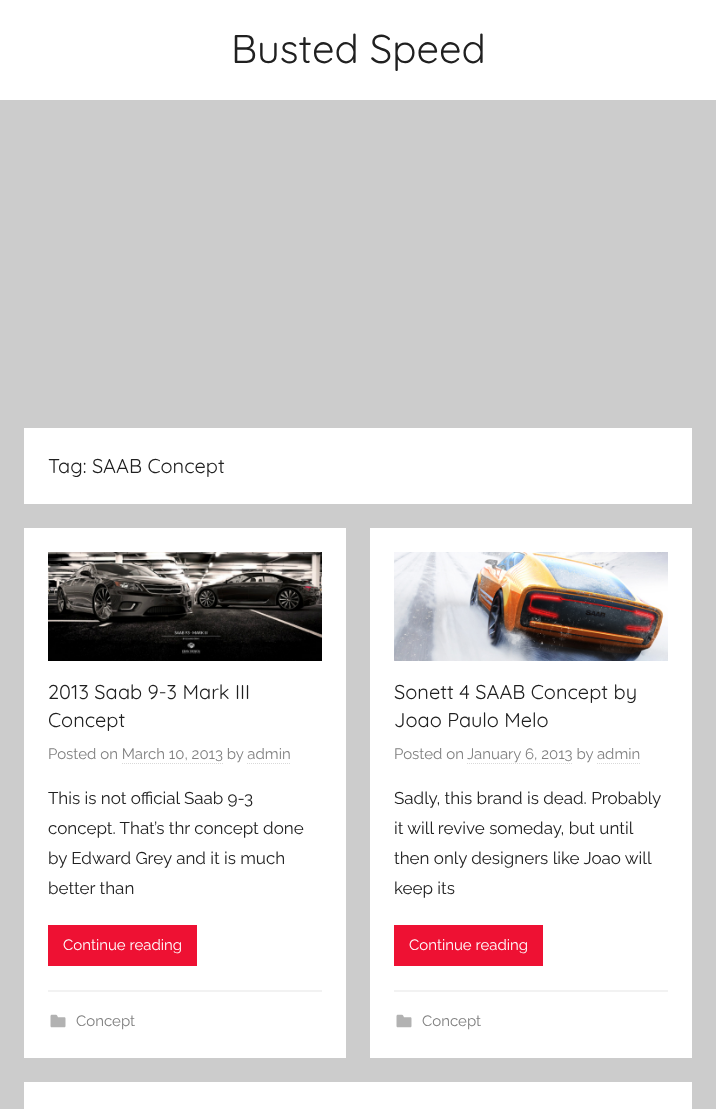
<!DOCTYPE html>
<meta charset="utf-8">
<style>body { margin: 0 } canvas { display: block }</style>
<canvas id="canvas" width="716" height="1109"></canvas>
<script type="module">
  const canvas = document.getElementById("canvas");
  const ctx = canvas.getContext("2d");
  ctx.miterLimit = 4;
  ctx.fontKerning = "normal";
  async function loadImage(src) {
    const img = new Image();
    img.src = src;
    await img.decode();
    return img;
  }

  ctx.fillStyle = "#cccccc";
  ctx.fillRect(0, 0, 716, 1109);
  ctx.fillStyle = "#ffffff";
  ctx.fillRect(0, 0, 716, 100);
  ctx.font = "40px Quicksand";
  ctx.fillStyle = "#202020";
  ctx.fillText("Busted Speed", 231, 63);
  ctx.fillStyle = "#ffffff";
  ctx.fillRect(24, 428, 668, 76);
  ctx.font = "20px Quicksand";
  ctx.fillStyle = "#202020";
  ctx.fillText("Tag: SAAB Concept", 48, 473);
  ctx.fillStyle = "#ffffff";
  ctx.fillRect(24, 528, 322, 530);
  ctx.drawImage(await loadImage("img1.png"), 48, 552, 274, 109);
  ctx.fillStyle = "#202020";
  ctx.fillText("2013 Saab 9-3 Mark III", 48, 699);
  ctx.fillText("Concept", 48, 727);
  ctx.font = "15px Raleway";
  ctx.fillStyle = "#808080";
  ctx.fillText("Posted on March 10, 2013 by admin", 48, 759);
  ctx.beginPath();
  ctx.moveTo(122, 763.5);
  ctx.lineTo(223, 763.5);
  ctx.strokeStyle = "#d9d9d9";
  ctx.setLineDash([1, 1]);
  ctx.stroke();
  ctx.beginPath();
  ctx.moveTo(247, 763.5);
  ctx.lineTo(291, 763.5);
  ctx.stroke();
  ctx.font = "17px Raleway";
  ctx.fillStyle = "#202020";
  ctx.fillText("This is not official Saab 9-3", 48, 804);
  ctx.fillText("concept. That’s thr concept done", 48, 834);
  ctx.fillText("by Edward Grey and it is much", 48, 864);
  ctx.fillText("better than", 48, 894);
  ctx.fillStyle = "#ee1133";
  ctx.fillRect(48, 925, 149, 41);
  ctx.font = "15px Raleway";
  ctx.fillStyle = "#ffffff";
  ctx.fillText("Continue reading", 63, 950);
  ctx.fillStyle = "#f2f2f2";
  ctx.fillRect(48, 990, 274, 2);
  ctx.drawImage(await loadImage("img2.png"), 50, 1014, 16, 14);
  ctx.fillStyle = "#808080";
  ctx.fillText("Concept", 76, 1026);
  ctx.fillStyle = "#ffffff";
  ctx.fillRect(370, 528, 322, 530);
  ctx.drawImage(await loadImage("img3.png"), 394, 552, 274, 109);
  ctx.font = "20px Quicksand";
  ctx.fillStyle = "#202020";
  ctx.fillText("Sonett 4 SAAB Concept by", 394, 699);
  ctx.fillText("Joao Paulo Melo", 394, 727);
  ctx.font = "15px Raleway";
  ctx.fillStyle = "#808080";
  ctx.fillText("Posted on", 394, 759);
  ctx.fillText("January 6, 2013 by admin", 467, 759);
  ctx.beginPath();
  ctx.moveTo(467, 763.5);
  ctx.lineTo(573, 763.5);
  ctx.stroke();
  ctx.beginPath();
  ctx.moveTo(597, 763.5);
  ctx.lineTo(641, 763.5);
  ctx.stroke();
  ctx.font = "17px Raleway";
  ctx.fillStyle = "#202020";
  ctx.fillText("Sadly, this brand is dead. Probably", 394, 804);
  ctx.fillText("it will revive someday, but until", 394, 834);
  ctx.fillText("then only designers like Joao will", 394, 864);
  ctx.fillText("keep its", 394, 894);
  ctx.fillStyle = "#ee1133";
  ctx.fillRect(394, 925, 149, 41);
  ctx.font = "15px Raleway";
  ctx.fillStyle = "#ffffff";
  ctx.fillText("Continue reading", 409, 950);
  ctx.fillStyle = "#f2f2f2";
  ctx.fillRect(394, 990, 274, 2);
  ctx.drawImage(await loadImage("img2.png"), 396, 1014, 16, 14);
  ctx.fillStyle = "#808080";
  ctx.fillText("Concept", 422, 1026);
  ctx.fillStyle = "#ffffff";
  ctx.fillRect(24, 1082, 668, 27);
</script>
